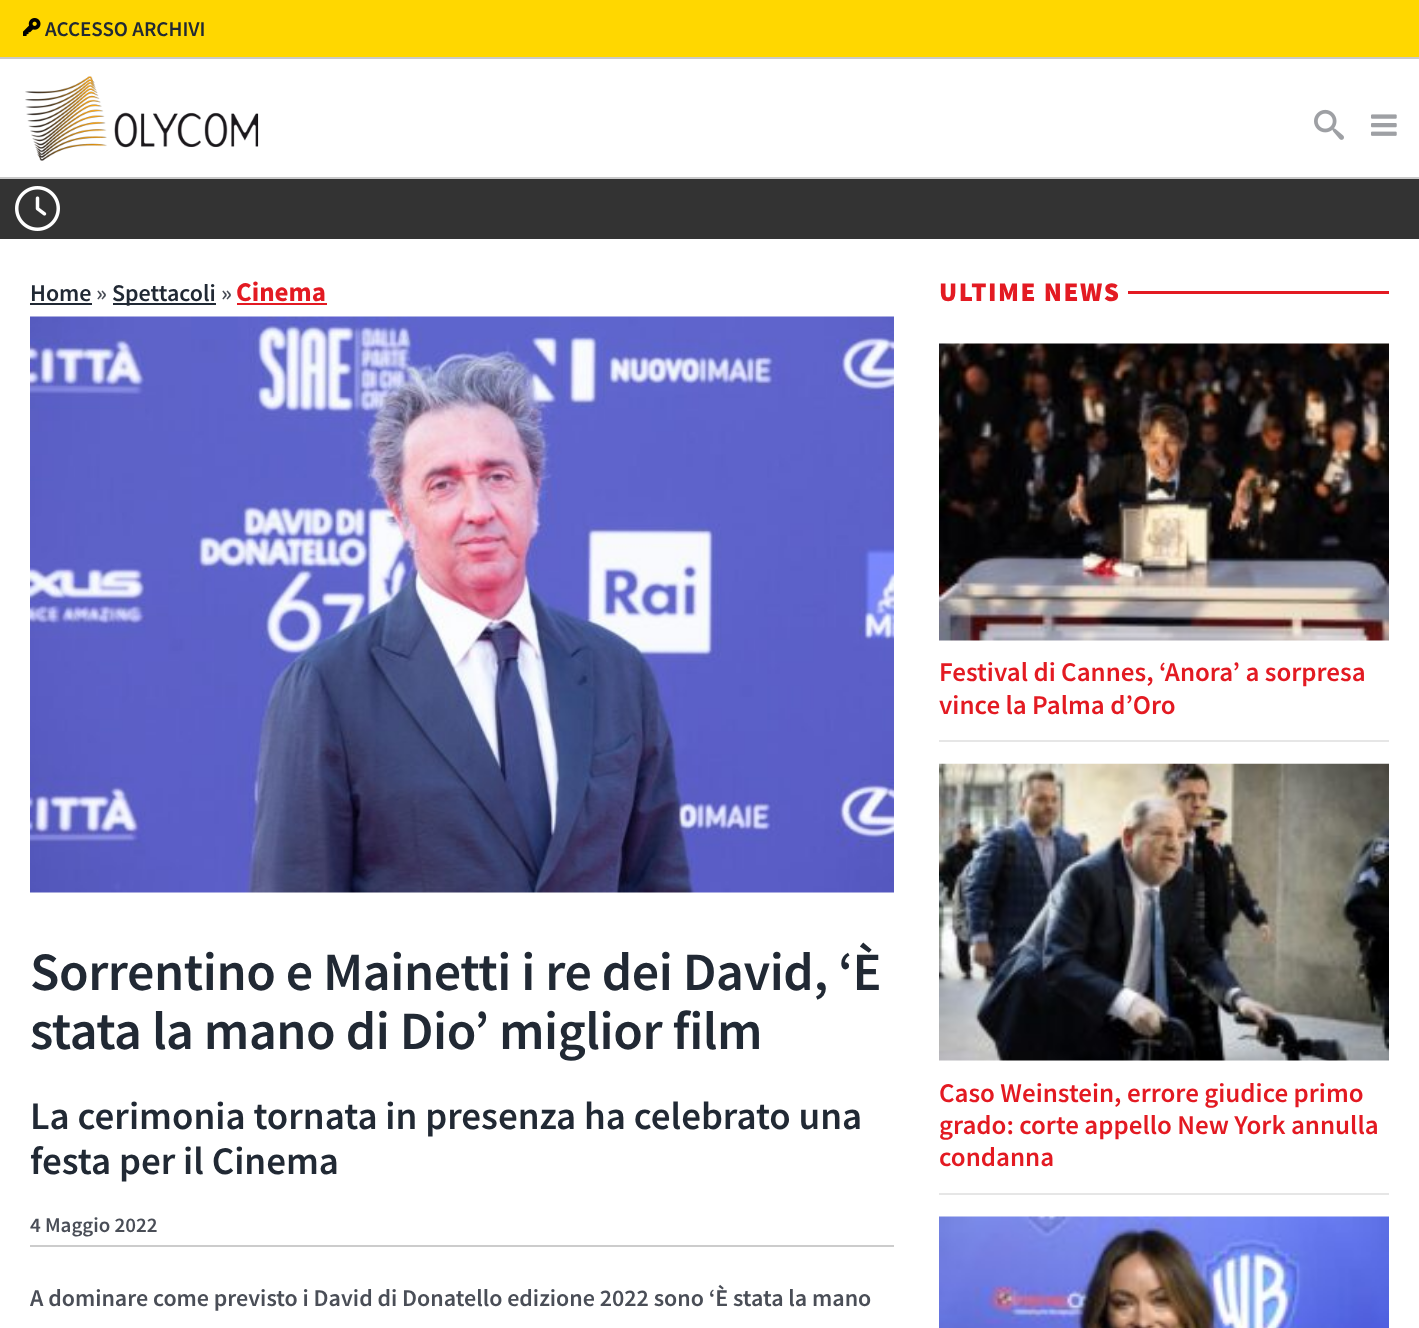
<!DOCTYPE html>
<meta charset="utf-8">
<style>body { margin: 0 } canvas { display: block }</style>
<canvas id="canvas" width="1419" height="1328"></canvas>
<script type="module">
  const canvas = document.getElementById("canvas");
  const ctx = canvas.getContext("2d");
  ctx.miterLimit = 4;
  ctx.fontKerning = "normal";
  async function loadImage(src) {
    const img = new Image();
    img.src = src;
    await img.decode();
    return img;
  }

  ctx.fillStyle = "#ffffff";
  ctx.fillRect(0, 0, 1419, 1328);
  ctx.fillStyle = "#ffd700";
  ctx.fillRect(0, 0, 1419, 57);
  ctx.drawImage(await loadImage("img1.png"), 23, 18, 18, 18);
  ctx.font = "600 21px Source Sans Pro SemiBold";
  ctx.fillStyle = "#212934";
  ctx.fillText("ACCESSO ARCHIVI", 45, 36);
  ctx.fillStyle = "#c9c9c9";
  ctx.fillRect(0, 57, 1419, 2);
  ctx.fillRect(0, 177, 1419, 2);
  ctx.drawImage(await loadImage("img2.png"), 25, 76, 234, 85);
  ctx.drawImage(await loadImage("img3.png"), 1314, 109, 30, 31);
  ctx.drawImage(await loadImage("img4.png"), 1371, 114, 26, 22);
  ctx.fillStyle = "#333333";
  ctx.fillRect(0, 179, 1419, 60);
  ctx.drawImage(await loadImage("img5.png"), 15, 186, 45, 45);
  ctx.font = "600 24px Source Sans Pro SemiBold";
  ctx.fillStyle = "#212934";
  ctx.fillText("Home", 30, 301);
  ctx.fillRect(30, 303, 62, 2);
  ctx.fillStyle = "#4a4e57";
  ctx.fillText("»", 96, 301);
  ctx.fillStyle = "#212934";
  ctx.fillRect(113, 303, 103, 2);
  ctx.fillText("Spettacoli", 112, 301);
  ctx.fillStyle = "#4a4e57";
  ctx.fillText("»", 221, 301);
  ctx.font = "bold 27px Source Sans Pro";
  ctx.fillStyle = "#e31a22";
  ctx.fillText("Cinema", 236, 301);
  ctx.fillRect(237, 303, 90, 2);
  ctx.drawImage(await loadImage("img6.png"), 30, 316, 864, 577);
  ctx.letterSpacing = "-0.45px";
  ctx.font = "600 54px Source Sans Pro SemiBold";
  ctx.fillStyle = "#212934";
  ctx.fillText("Sorrentino e Mainetti i re dei David, ‘È", 30, 990);
  ctx.fillText("stata la mano di Dio’ miglior film", 30, 1049);
  ctx.letterSpacing = "0px";
  ctx.font = "600 39px Source Sans Pro SemiBold";
  ctx.fillText("La cerimonia tornata in presenza ha celebrato una", 30, 1129);
  ctx.fillText("festa per il Cinema", 30, 1174);
  ctx.fillStyle = "#cccccc";
  ctx.fillRect(30, 1245, 864, 2);
  ctx.font = "600 21px Source Sans Pro SemiBold";
  ctx.fillStyle = "#4a4e57";
  ctx.fillText("4 Maggio 2022", 30, 1232);
  ctx.font = "600 24px Source Sans Pro SemiBold";
  ctx.fillText("A dominare come previsto i David di Donatello edizione 2022 sono ‘È stata la mano", 30, 1306);
  ctx.letterSpacing = "1.5px";
  ctx.font = "900 27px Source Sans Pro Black";
  ctx.fillStyle = "#e31a22";
  ctx.fillText("ULTIME NEWS", 939, 301);
  ctx.fillRect(1128, 291, 261, 3);
  ctx.fillStyle = "#e6e6e6";
  ctx.fillRect(939, 740, 450, 2);
  ctx.drawImage(await loadImage("img7.png"), 939, 343, 450, 298);
  ctx.letterSpacing = "0px";
  ctx.font = "600 27px Source Sans Pro SemiBold";
  ctx.fillStyle = "#e31a22";
  ctx.fillText("Festival di Cannes, ‘Anora’ a sorpresa", 939, 681);
  ctx.fillText("vince la Palma d’Oro", 939, 714);
  ctx.fillStyle = "#e6e6e6";
  ctx.fillRect(939, 1193, 450, 2);
  ctx.drawImage(await loadImage("img8.png"), 939, 763, 450, 298);
  ctx.fillStyle = "#e31a22";
  ctx.fillText("Caso Weinstein, errore giudice primo", 939, 1102);
  ctx.fillText("grado: corte appello New York annulla", 939, 1134);
  ctx.fillText("condanna", 939, 1166);
  ctx.drawImage(await loadImage("img9.png"), 939, 1216, 450, 112);
</script>
